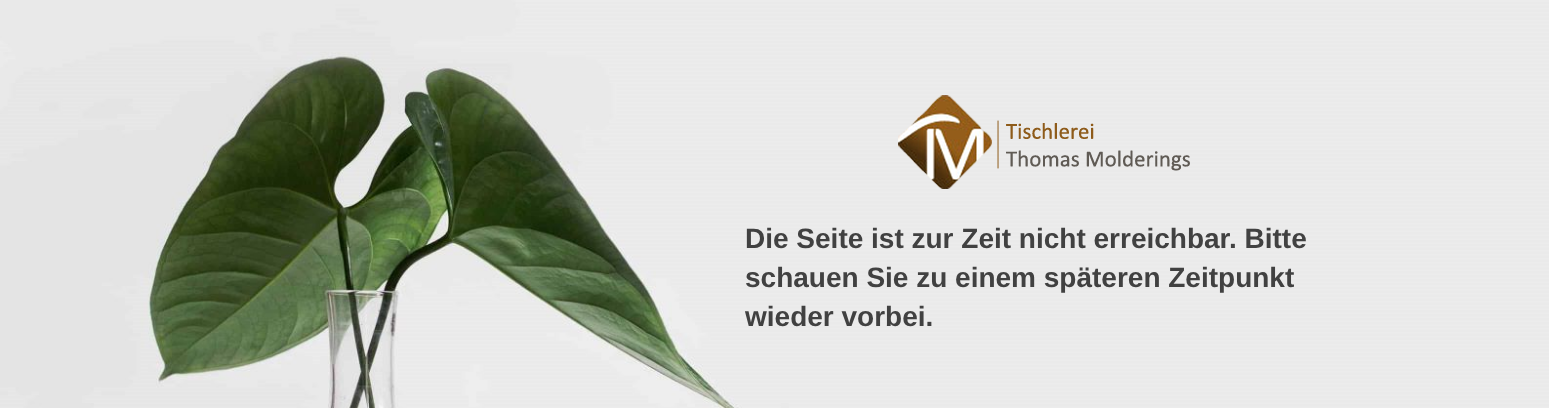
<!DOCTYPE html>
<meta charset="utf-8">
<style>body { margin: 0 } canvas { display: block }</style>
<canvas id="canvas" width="1549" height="408"></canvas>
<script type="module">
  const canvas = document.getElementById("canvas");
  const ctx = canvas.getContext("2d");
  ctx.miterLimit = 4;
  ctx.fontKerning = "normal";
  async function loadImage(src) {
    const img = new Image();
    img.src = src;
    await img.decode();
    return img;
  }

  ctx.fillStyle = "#ffffff";
  ctx.fillRect(0, 0, 1549, 408);
  ctx.drawImage(await loadImage("img1.png"), 0, 0, 1549, 408);
  ctx.drawImage(await loadImage("img2.png"), 898, 95, 292, 94);
  ctx.font = "bold 28px Liberation Sans";
  ctx.fillStyle = "#414141";
  ctx.fillText("Die Seite ist zur Zeit nicht erreichbar. Bitte", 745, 248);
  ctx.fillText("schauen Sie zu einem späteren Zeitpunkt", 745, 287);
  ctx.fillText("wieder vorbei.", 745, 326);
</script>
